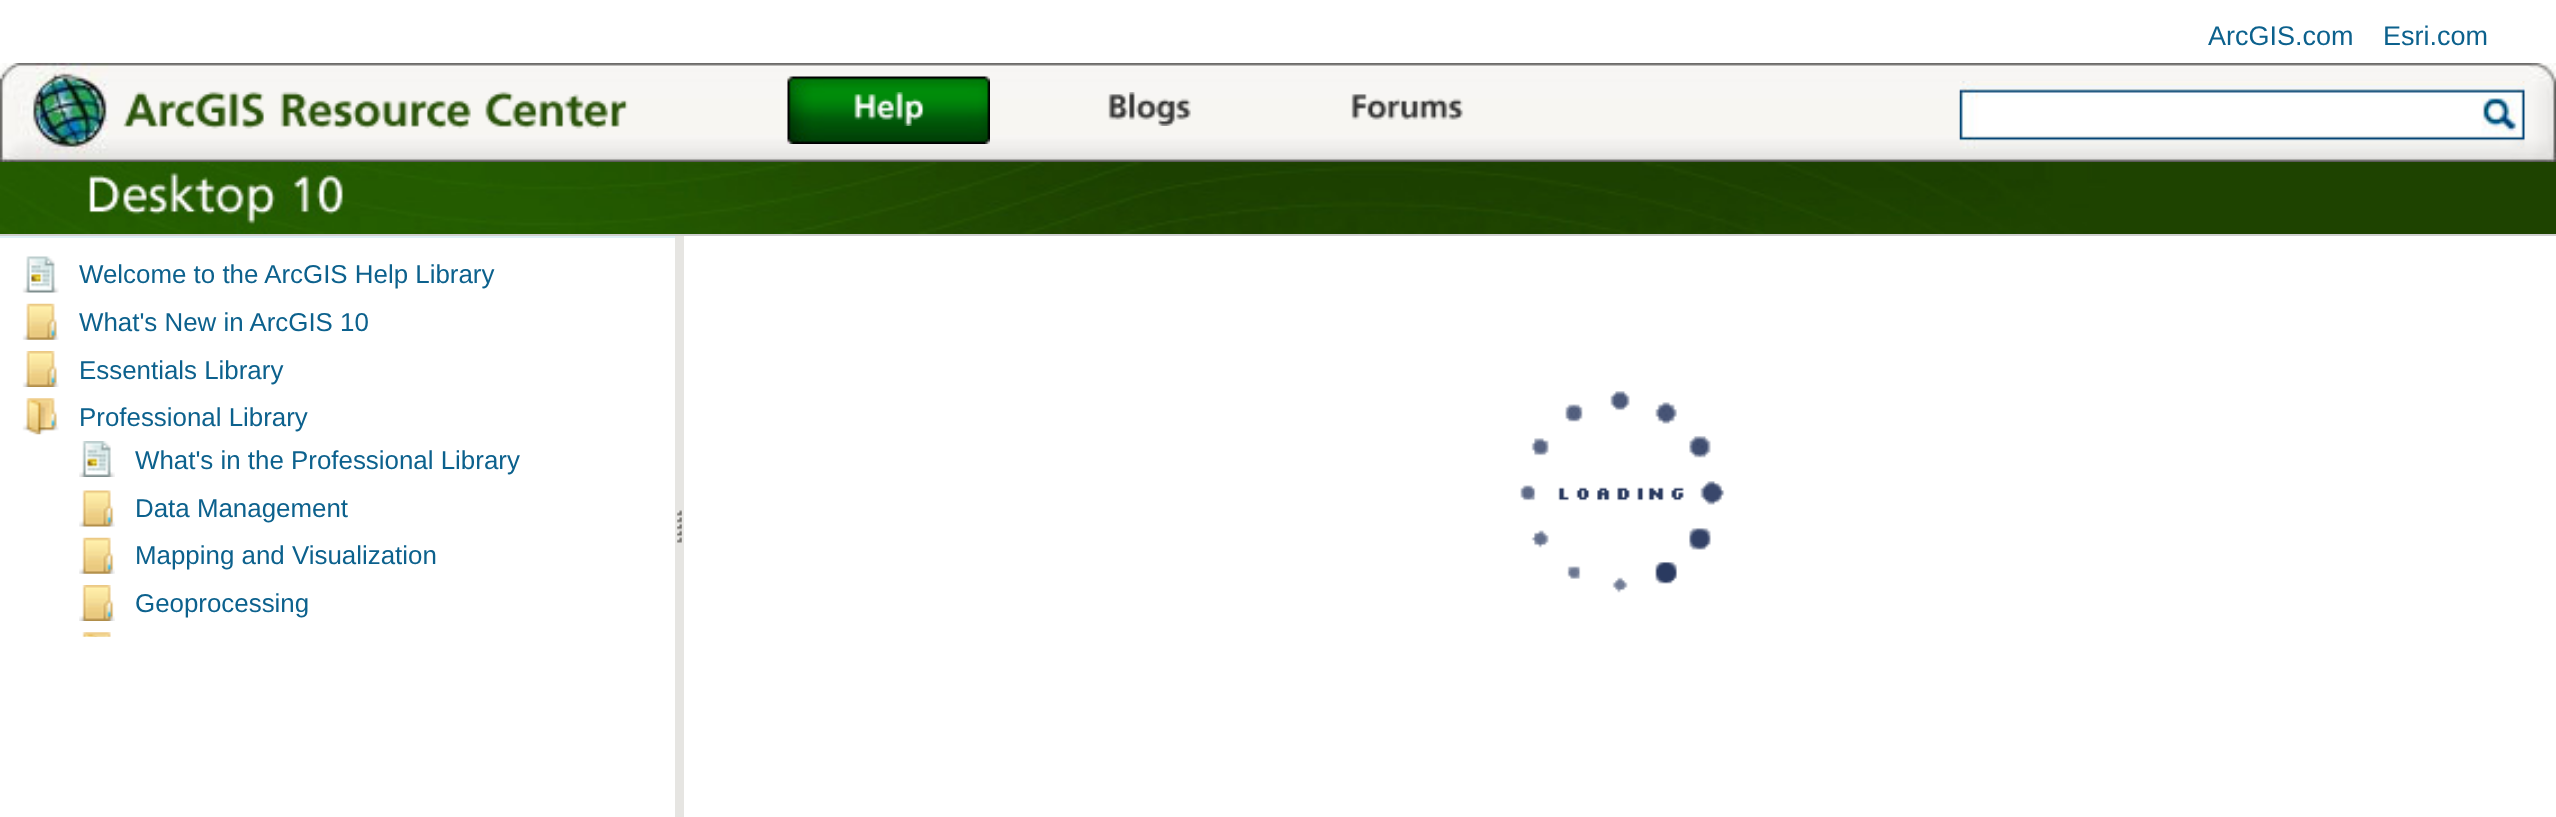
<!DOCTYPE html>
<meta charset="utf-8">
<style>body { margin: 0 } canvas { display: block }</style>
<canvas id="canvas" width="2556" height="817"></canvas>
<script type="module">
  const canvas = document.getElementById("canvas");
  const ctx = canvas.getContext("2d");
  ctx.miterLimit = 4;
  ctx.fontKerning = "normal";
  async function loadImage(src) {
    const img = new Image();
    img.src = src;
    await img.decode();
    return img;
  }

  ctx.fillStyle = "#ffffff";
  ctx.fillRect(0, 0, 2556, 817);
  ctx.drawImage(await loadImage("img1.png"), 513, 63, 2043, 99);
  ctx.font = "27px Liberation Sans";
  ctx.fillStyle = "#0c618d";
  ctx.fillText("ArcGIS.com", 2208, 45);
  ctx.fillText("Esri.com", 2383, 45);
  ctx.drawImage(await loadImage("img2.png"), 0, 63, 513, 99);
  ctx.drawImage(await loadImage("img3.png"), 123, 91, 141, 38);
  ctx.drawImage(await loadImage("img4.png"), 280, 91, 191, 38);
  ctx.drawImage(await loadImage("img5.png"), 485, 91, 143, 38);
  ctx.drawImage(await loadImage("img6.png"), 787, 76, 203, 68);
  ctx.drawImage(await loadImage("img7.png"), 854, 92, 70, 34);
  ctx.drawImage(await loadImage("img8.png"), 1108, 92, 83, 34);
  ctx.drawImage(await loadImage("img9.png"), 1351, 94, 113, 26);
  ctx.drawImage(await loadImage("img10.png"), 1959, 81, 566, 68);
  ctx.drawImage(await loadImage("img11.png"), 0, 162, 2556, 72);
  ctx.fillStyle = "#cfcfcf";
  ctx.fillRect(0, 234, 2556, 2);
  ctx.fillStyle = "#dff0f8";
  ctx.fillRect(0, 236, 675, 2);
  ctx.drawImage(await loadImage("img12.png"), 22, 256, 37, 37);
  ctx.font = "25.9px Liberation Sans";
  ctx.fillStyle = "#0c618d";
  ctx.fillText("Welcome to the ArcGIS Help Library", 79, 283);
  ctx.drawImage(await loadImage("img13.png"), 22, 303, 37, 37);
  ctx.fillText("What's New in ArcGIS 10", 79, 331);
  ctx.drawImage(await loadImage("img14.png"), 22, 351, 37, 36);
  ctx.fillText("Essentials Library", 79, 379);
  ctx.drawImage(await loadImage("img15.png"), 22, 398, 37, 37);
  ctx.fillText("Professional Library", 79, 426);
  ctx.drawImage(await loadImage("img16.png"), 79, 441, 36, 36);
  ctx.fillText("What's in the Professional Library", 135, 469);
  ctx.drawImage(await loadImage("img17.png"), 79, 490, 36, 37);
  ctx.fillText("Data Management", 135, 517);
  ctx.drawImage(await loadImage("img18.png"), 79, 537, 36, 37);
  ctx.fillText("Mapping and Visualization", 135, 564);
  ctx.drawImage(await loadImage("img19.png"), 79, 585, 36, 36);
  ctx.fillText("Geoprocessing", 135, 612);
  ctx.drawImage(await loadImage("img20.png"), 82, 632, 29, 5);
  ctx.fillStyle = "#e6e5e2";
  ctx.fillRect(675, 236, 9, 581);
  ctx.drawImage(await loadImage("img21.png"), 677, 510, 5, 33);
  ctx.drawImage(await loadImage("img22.png"), 1520, 391, 205, 202);
</script>
